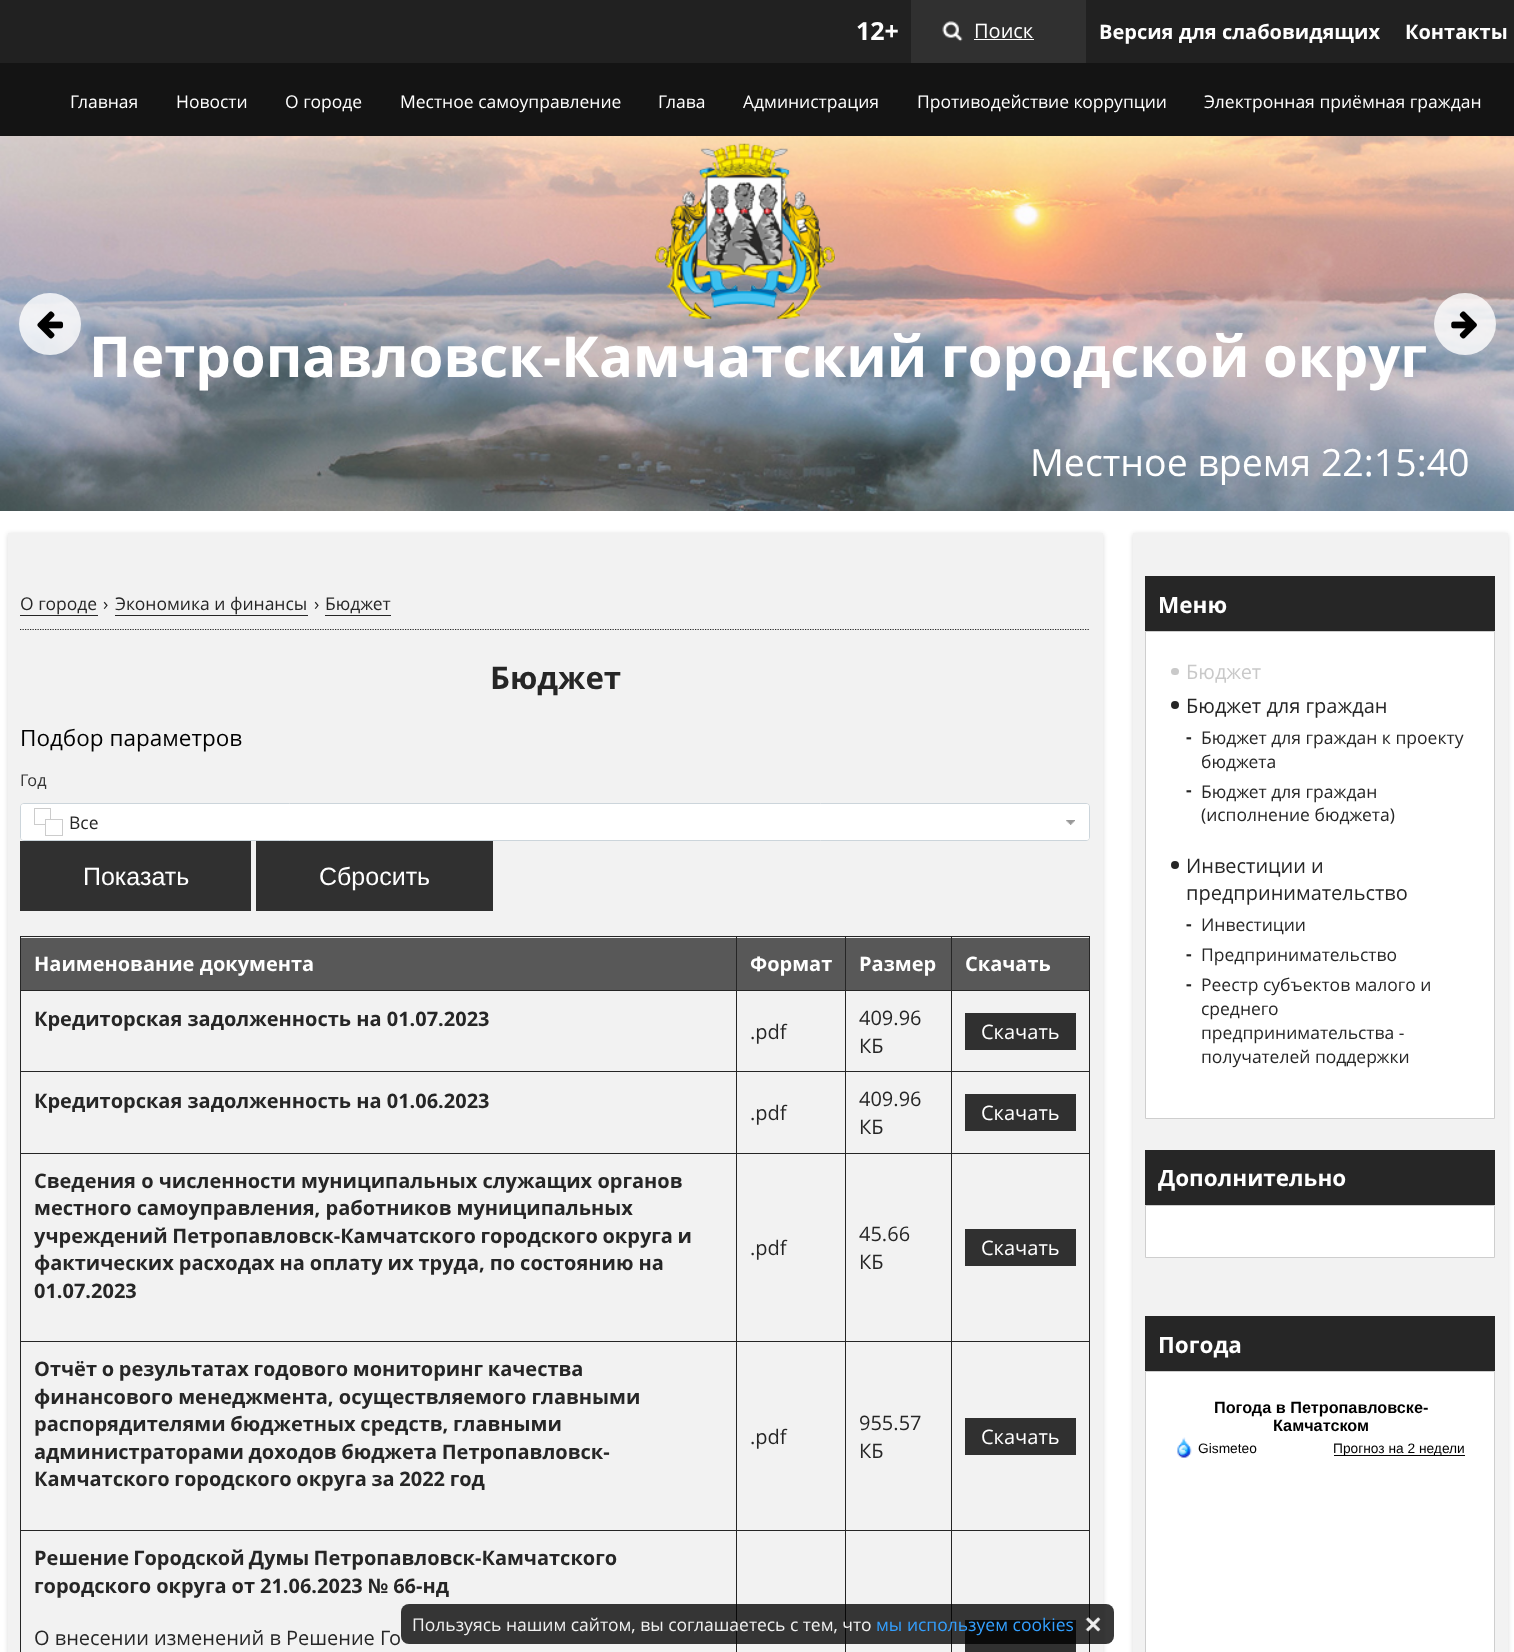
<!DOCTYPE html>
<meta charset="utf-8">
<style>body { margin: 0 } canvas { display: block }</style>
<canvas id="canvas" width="1514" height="1652"></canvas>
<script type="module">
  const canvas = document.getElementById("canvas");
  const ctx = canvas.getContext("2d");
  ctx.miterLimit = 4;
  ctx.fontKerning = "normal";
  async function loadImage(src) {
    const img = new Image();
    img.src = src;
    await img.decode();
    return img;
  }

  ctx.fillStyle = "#ffffff";
  ctx.fillRect(0, 0, 1514, 1652);
  ctx.fillStyle = "#212121";
  ctx.fillRect(0, 0, 1514, 63);
  ctx.font = "bold 25px Open Sans";
  ctx.fillStyle = "#ffffff";
  ctx.fillText("12+", 856, 40);
  ctx.fillStyle = "#303030";
  ctx.fillRect(911, 0, 175, 63);
  ctx.drawImage(await loadImage("img1.png"), 942, 21, 21, 21);
  ctx.font = "20px Open Sans";
  ctx.fillStyle = "#ffffff";
  ctx.fillText("Поиск", 974, 38);
  ctx.fillRect(974, 39, 60, 1);
  ctx.font = "bold 20px Open Sans";
  ctx.fillText("Версия для слабовидящих", 1099, 39);
  ctx.fillText("Контакты", 1405, 39);
  ctx.drawImage(await loadImage("img5.png"), 0, 136, 1514, 375);
  ctx.drawImage(await loadImage("img2.png"), 654, 143, 181, 176);
  ctx.font = "37.5px Open Sans";
  ctx.fillText("Местное время 22:15:40", 1030, 476);
  ctx.fillStyle = "#141414";
  ctx.fillRect(0, 63, 1514, 73);
  ctx.font = "17.5px Open Sans";
  ctx.fillStyle = "#ffffff";
  ctx.fillText("Главная", 70, 108);
  ctx.fillText("Новости", 176, 108);
  ctx.fillText("О городе", 285, 108);
  ctx.fillText("Местное самоуправление", 400, 108);
  ctx.fillText("Глава", 658, 108);
  ctx.fillText("Администрация", 743, 108);
  ctx.fillText("Противодействие коррупции", 917, 108);
  ctx.fillText("Электронная приёмная граждан", 1204, 108);
  ctx.fillStyle = "rgba(255, 255, 255, 0.8)";
  ctx.beginPath();
  ctx.arc(50, 324, 31, 0, Math.PI * 2);
  ctx.fill();
  ctx.drawImage(await loadImage("img3.png"), 37, 311, 27, 28);
  ctx.beginPath();
  ctx.arc(1465, 324, 31, 0, Math.PI * 2);
  ctx.fill();
  ctx.drawImage(await loadImage("img4.png"), 1451, 311, 26, 28);
  ctx.wordSpacing = "-1px";
  ctx.font = "bold 56.25px Open Sans";
  ctx.fillStyle = "#ffffff";
  ctx.fillText("Петропавловск-Камчатский городской округ", 89, 377);
  ctx.fillStyle = "rgba(0, 1, 5, 0.15)";
  ctx.filter = "blur(2.5px)";
  ctx.beginPath();
  ctx.rect(8, 534, 1095, 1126);
  ctx.fill();
  ctx.filter = "none";
  ctx.fillStyle = "#f2f2f2";
  ctx.fillRect(8, 533, 1095, 1119);
  ctx.beginPath();
  ctx.moveTo(20, 629.5);
  ctx.lineTo(1090, 629.5);
  ctx.strokeStyle = "#262626";
  ctx.lineWidth = 1.2;
  ctx.setLineDash([1.25, 1.25]);
  ctx.stroke();
  ctx.wordSpacing = "0px";
  ctx.font = "17.5px Open Sans";
  ctx.fillStyle = "#262626";
  ctx.fillText("О городе", 20, 610);
  ctx.fillRect(20, 615, 78, 1);
  ctx.fillText("›", 103, 610);
  ctx.fillText("Экономика и финансы", 115, 610);
  ctx.fillRect(115, 615, 193, 1);
  ctx.fillText("›", 314, 610);
  ctx.fillText("Бюджет", 325, 610);
  ctx.fillRect(325, 615, 66, 1);
  ctx.font = "bold 31.25px Open Sans";
  ctx.fillText("Бюджет", 490, 689);
  ctx.font = "22.5px Open Sans";
  ctx.fillStyle = "#000000";
  ctx.fillText("Подбор параметров", 20, 746);
  ctx.font = "16.25px Open Sans";
  ctx.fillStyle = "#333333";
  ctx.fillText("Год", 20, 786);
  ctx.beginPath();
  ctx.roundRect(20.5, 803.5, 1069, 37, 3.5);
  ctx.strokeStyle = "#ccd5db";
  ctx.lineWidth = 1;
  ctx.setLineDash([]);
  ctx.stroke();
  ctx.fillStyle = "#ffffff";
  ctx.beginPath();
  ctx.roundRect(21, 804, 1068, 36, 2.5);
  ctx.fill();
  ctx.strokeStyle = "#cccccc";
  ctx.strokeRect(34.5, 808.5, 16, 16);
  ctx.fillRect(46, 820, 5, 5);
  ctx.strokeRect(45.5, 819.5, 17, 16);
  ctx.font = "17.5px Open Sans";
  ctx.fillStyle = "#262626";
  ctx.fillText("Все", 69, 829);
  ctx.drawImage(await loadImage("img6.png"), 1066, 820, 9, 5);
  ctx.fillStyle = "#303030";
  ctx.fillRect(20, 841, 231, 70);
  ctx.font = "25px Liberation Sans";
  ctx.fillStyle = "#ffffff";
  ctx.fillText("Показать", 83, 885);
  ctx.fillStyle = "#303030";
  ctx.fillRect(256, 841, 237, 70);
  ctx.fillStyle = "#ffffff";
  ctx.fillText("Сбросить", 319, 885);
  ctx.fillStyle = "#585858";
  ctx.fillRect(21, 938, 824, 52);
  ctx.fillStyle = "#262626";
  ctx.fillRect(951, 936, 139, 1);
  ctx.fillStyle = "#585858";
  ctx.fillRect(846, 938, 243, 52);
  ctx.fillStyle = "#262626";
  ctx.fillRect(951, 990, 139, 1);
  ctx.fillRect(951, 1071, 139, 1);
  ctx.fillRect(951, 1153, 139, 1);
  ctx.fillRect(951, 1341, 139, 1);
  ctx.fillRect(951, 1530, 139, 1);
  ctx.fillRect(951, 1530, 1, 122);
  ctx.fillRect(845, 1530, 108, 1);
  ctx.fillRect(951, 1341, 1, 190);
  ctx.fillRect(845, 1341, 108, 1);
  ctx.fillRect(951, 1153, 1, 190);
  ctx.fillRect(845, 1153, 108, 1);
  ctx.fillRect(951, 1071, 1, 83);
  ctx.fillRect(845, 1071, 108, 1);
  ctx.fillRect(951, 990, 1, 83);
  ctx.fillRect(845, 990, 108, 1);
  ctx.fillRect(951, 936, 1, 55);
  ctx.fillRect(845, 936, 108, 1);
  ctx.fillRect(845, 1530, 1, 122);
  ctx.fillRect(736, 1530, 110, 1);
  ctx.fillRect(845, 1341, 1, 190);
  ctx.fillRect(736, 1341, 110, 1);
  ctx.fillRect(845, 1153, 1, 190);
  ctx.fillRect(736, 1153, 110, 1);
  ctx.fillRect(845, 1071, 1, 83);
  ctx.fillRect(736, 1071, 110, 1);
  ctx.fillRect(845, 990, 1, 83);
  ctx.fillRect(736, 990, 110, 1);
  ctx.fillRect(845, 936, 1, 55);
  ctx.fillRect(736, 936, 110, 1);
  ctx.fillRect(736, 1530, 1, 122);
  ctx.fillRect(20, 1530, 718, 1);
  ctx.fillRect(736, 1341, 1, 190);
  ctx.fillRect(20, 1341, 718, 1);
  ctx.fillRect(736, 1153, 1, 190);
  ctx.fillRect(20, 1153, 718, 1);
  ctx.fillRect(736, 1071, 1, 83);
  ctx.fillRect(20, 1071, 718, 1);
  ctx.fillRect(736, 990, 1, 83);
  ctx.fillRect(20, 990, 718, 1);
  ctx.fillRect(736, 936, 1, 55);
  ctx.fillRect(20, 936, 718, 1);
  ctx.fillRect(20, 1530, 1, 122);
  ctx.fillRect(20, 1341, 1, 190);
  ctx.fillRect(20, 1153, 1, 190);
  ctx.fillRect(20, 1071, 1, 83);
  ctx.fillRect(20, 990, 1, 83);
  ctx.fillRect(20, 936, 1, 55);
  ctx.font = "bold 20px Open Sans";
  ctx.fillStyle = "#ffffff";
  ctx.fillText("Наименование документа", 34, 971);
  ctx.fillText("Формат", 750, 971);
  ctx.fillText("Размер", 859, 971);
  ctx.fillStyle = "#262626";
  ctx.fillRect(1089, 1530, 1, 122);
  ctx.fillRect(1089, 1341, 1, 190);
  ctx.fillRect(1089, 1153, 1, 190);
  ctx.fillRect(1089, 1071, 1, 83);
  ctx.fillRect(1089, 990, 1, 83);
  ctx.fillRect(1089, 936, 1, 55);
  ctx.fillStyle = "#ffffff";
  ctx.fillText("Скачать", 965, 971);
  ctx.fillStyle = "#262626";
  ctx.fillText("Кредиторская задолженность на 01.07.2023", 34, 1026);
  ctx.font = "20px Open Sans";
  ctx.fillText("409.96", 859, 1025);
  ctx.fillText("КБ", 859, 1053);
  ctx.fillText(".pdf", 750, 1039);
  ctx.fillStyle = "#303030";
  ctx.fillRect(965, 1013, 111, 37);
  ctx.fillStyle = "#ffffff";
  ctx.fillText("Скачать", 981, 1039);
  ctx.font = "bold 20px Open Sans";
  ctx.fillStyle = "#262626";
  ctx.fillText("Кредиторская задолженность на 01.06.2023", 34, 1108);
  ctx.font = "20px Open Sans";
  ctx.fillText(".pdf", 750, 1120);
  ctx.fillText("409.96", 859, 1106);
  ctx.fillText("КБ", 859, 1134);
  ctx.fillStyle = "#303030";
  ctx.fillRect(965, 1094, 111, 37);
  ctx.fillStyle = "#ffffff";
  ctx.fillText("Скачать", 981, 1120);
  ctx.font = "bold 20px Open Sans";
  ctx.fillStyle = "#262626";
  ctx.fillText("Сведения о численности муниципальных служащих органов", 34, 1188);
  ctx.fillText("местного самоуправления, работников муниципальных", 34, 1215);
  ctx.wordSpacing = "-0.5px";
  ctx.fillText("учреждений Петропавловск-Камчатского городского округа и", 34, 1243);
  ctx.wordSpacing = "-0.25px";
  ctx.fillText("фактических расходах на оплату их труда, по состоянию на", 34, 1270);
  ctx.wordSpacing = "0px";
  ctx.fillText("01.07.2023", 34, 1298);
  ctx.font = "20px Open Sans";
  ctx.fillText(".pdf", 750, 1255);
  ctx.fillText("45.66", 859, 1241);
  ctx.fillText("КБ", 859, 1269);
  ctx.fillStyle = "#303030";
  ctx.fillRect(965, 1229, 111, 37);
  ctx.fillStyle = "#ffffff";
  ctx.fillText("Скачать", 981, 1255);
  ctx.wordSpacing = "-0.5px";
  ctx.font = "bold 20px Open Sans";
  ctx.fillStyle = "#262626";
  ctx.fillText("Отчёт о результатах годового мониторинг качества", 34, 1376);
  ctx.wordSpacing = "0px";
  ctx.fillText("финансового менеджмента, осуществляемого главными", 34, 1404);
  ctx.wordSpacing = "-0.5px";
  ctx.fillText("распорядителями бюджетных средств, главными", 34, 1431);
  ctx.fillText("администраторами доходов бюджета Петропавловск-", 34, 1459);
  ctx.fillText("Камчатского городского округа за 2022 год", 34, 1486);
  ctx.wordSpacing = "0px";
  ctx.font = "20px Open Sans";
  ctx.fillText(".pdf", 750, 1444);
  ctx.fillText("955.57", 859, 1430);
  ctx.fillText("КБ", 859, 1458);
  ctx.fillStyle = "#303030";
  ctx.fillRect(965, 1418, 111, 37);
  ctx.fillStyle = "#ffffff";
  ctx.fillText("Скачать", 981, 1444);
  ctx.wordSpacing = "-1px";
  ctx.font = "bold 20px Open Sans";
  ctx.fillStyle = "#262626";
  ctx.fillText("Решение Городской Думы Петропавловск-Камчатского", 34, 1565);
  ctx.wordSpacing = "-0.25px";
  ctx.fillText("городского округа от 21.06.2023 № 66-нд", 34, 1593);
  ctx.wordSpacing = "0px";
  ctx.font = "20px Open Sans";
  ctx.fillText("О внесении изменений в Решение Го", 34, 1645);
  ctx.fillStyle = "#303030";
  ctx.fillRect(965, 1620, 111, 32);
  ctx.fillStyle = "rgba(0, 1, 5, 0.15)";
  ctx.filter = "blur(2.5px)";
  ctx.beginPath();
  ctx.rect(1133, 534, 375, 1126);
  ctx.fill();
  ctx.filter = "none";
  ctx.fillStyle = "#f2f2f2";
  ctx.fillRect(1133, 533, 375, 1119);
  ctx.fillStyle = "#262626";
  ctx.fillRect(1145, 576, 350, 55);
  ctx.font = "bold 22.5px Open Sans";
  ctx.fillStyle = "#ffffff";
  ctx.fillText("Меню", 1158, 613);
  ctx.beginPath();
  ctx.rect(1145.5, 631.5, 349, 487);
  ctx.fill();
  ctx.strokeStyle = "#cecece";
  ctx.stroke();
  ctx.fillStyle = "#c9c9c9";
  ctx.beginPath();
  ctx.roundRect(1171, 668, 8, 7, 3.5);
  ctx.fill();
  ctx.font = "20px Open Sans";
  ctx.fillText("Бюджет", 1186, 679);
  ctx.fillStyle = "#262626";
  ctx.beginPath();
  ctx.arc(1175, 705, 4, 0, Math.PI * 2);
  ctx.fill();
  ctx.fillText("Бюджет для граждан", 1186, 713);
  ctx.font = "bold 17.5px Open Sans";
  ctx.fillText("-", 1186, 743);
  ctx.font = "17.5px Open Sans";
  ctx.fillText("Бюджет для граждан к проекту", 1201, 744);
  ctx.fillText("бюджета", 1201, 768);
  ctx.font = "bold 17.5px Open Sans";
  ctx.fillText("-", 1186, 796);
  ctx.font = "17.5px Open Sans";
  ctx.fillText("Бюджет для граждан", 1201, 798);
  ctx.fillText("(исполнение бюджета)", 1201, 821);
  ctx.beginPath();
  ctx.arc(1175, 865, 4, 0, Math.PI * 2);
  ctx.fill();
  ctx.font = "20px Open Sans";
  ctx.fillText("Инвестиции и", 1186, 873);
  ctx.fillText("предпринимательство", 1186, 900);
  ctx.font = "bold 17.5px Open Sans";
  ctx.fillText("-", 1186, 930);
  ctx.font = "17.5px Open Sans";
  ctx.fillText("Инвестиции", 1201, 931);
  ctx.font = "bold 17.5px Open Sans";
  ctx.fillText("-", 1186, 960);
  ctx.font = "17.5px Open Sans";
  ctx.fillText("Предпринимательство", 1201, 961);
  ctx.font = "bold 17.5px Open Sans";
  ctx.fillText("-", 1186, 990);
  ctx.font = "17.5px Open Sans";
  ctx.fillText("Реестр субъектов малого и", 1201, 991);
  ctx.fillText("среднего", 1201, 1015);
  ctx.fillText("предпринимательства -", 1201, 1039);
  ctx.fillText("получателей поддержки", 1201, 1063);
  ctx.fillRect(1145, 1150, 350, 55);
  ctx.font = "bold 22.5px Open Sans";
  ctx.fillStyle = "#ffffff";
  ctx.fillText("Дополнительно", 1158, 1186);
  ctx.beginPath();
  ctx.rect(1145.5, 1205.5, 349, 52);
  ctx.fill();
  ctx.stroke();
  ctx.fillStyle = "#262626";
  ctx.fillRect(1145, 1316, 350, 55);
  ctx.fillStyle = "#ffffff";
  ctx.fillText("Погода", 1158, 1353);
  ctx.beginPath();
  ctx.rect(1145.5, 1371.5, 349, 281);
  ctx.fill();
  ctx.stroke();
  ctx.font = "bold 16.25px Liberation Sans";
  ctx.fillStyle = "#000000";
  ctx.fillText("Погода в Петропавловске-", 1214, 1413);
  ctx.fillText("Камчатском", 1273, 1431);
  ctx.drawImage(await loadImage("img7.png"), 1177, 1437, 15, 21);
  ctx.font = "13.75px Liberation Sans";
  ctx.fillText("Gismeteo", 1198, 1453);
  ctx.fillRect(1334, 1455, 131, 1);
  ctx.fillText("Прогноз на 2 недели", 1333, 1453);
  ctx.fillStyle = "rgba(0, 0, 0, 0.78)";
  ctx.beginPath();
  ctx.roundRect(401, 1604, 713, 40, 8);
  ctx.fill();
  ctx.font = "17.5px Open Sans";
  ctx.fillStyle = "#f1f1f1";
  ctx.fillText("Пользуясь нашим сайтом, вы соглашаетесь с тем, что", 412, 1631);
  ctx.fillStyle = "#34a0ff";
  ctx.fillText("мы используем cookies", 876, 1631);
  ctx.drawImage(await loadImage("img8.png"), 1085, 1617, 16, 15);
</script>
